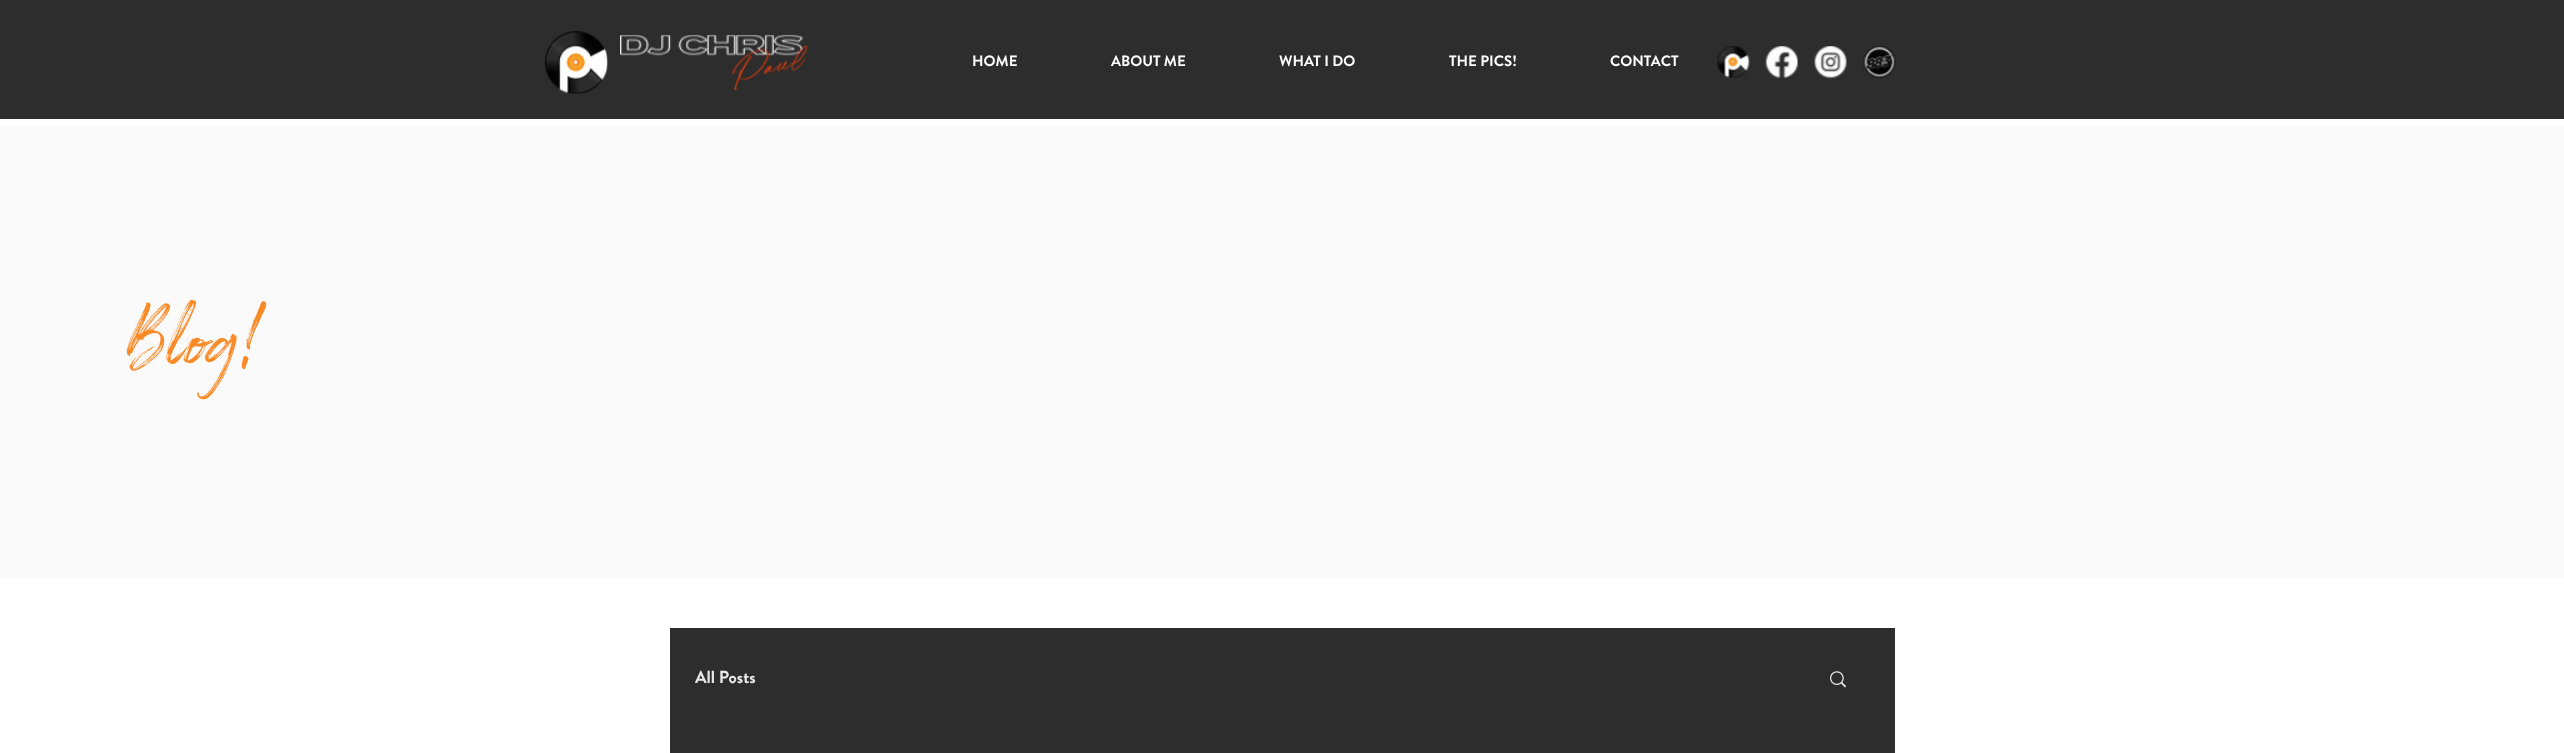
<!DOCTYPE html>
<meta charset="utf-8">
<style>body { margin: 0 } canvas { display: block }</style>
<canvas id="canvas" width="2564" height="753"></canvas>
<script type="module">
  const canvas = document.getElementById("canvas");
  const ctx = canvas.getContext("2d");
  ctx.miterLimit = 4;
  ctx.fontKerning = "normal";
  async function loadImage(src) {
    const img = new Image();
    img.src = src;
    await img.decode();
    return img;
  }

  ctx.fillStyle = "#ffffff";
  ctx.fillRect(0, 0, 2564, 753);
  ctx.fillStyle = "#2d2d2d";
  ctx.fillRect(0, 0, 2564, 119);
  ctx.drawImage(await loadImage("img1.png"), 545, 31, 63, 63);
  ctx.drawImage(await loadImage("img2.png"), 620, 34, 188, 57);
  ctx.font = "bold 15px Brandon Grotesque";
  ctx.fillStyle = "#ffffff";
  ctx.fillText("HOME", 972, 66);
  ctx.fillText("ABOUT ME", 1111, 66);
  ctx.fillText("WHAT I DO", 1279, 66);
  ctx.fillText("THE PICS!", 1449, 66);
  ctx.fillText("CONTACT", 1610, 66);
  ctx.drawImage(await loadImage("img3.png"), 1717, 46, 33, 32);
  ctx.drawImage(await loadImage("img4.png"), 1765, 46, 33, 33);
  ctx.drawImage(await loadImage("img5.png"), 1814, 46, 33, 33);
  ctx.drawImage(await loadImage("img6.png"), 1863, 46, 33, 32);
  ctx.fillStyle = "#fafafa";
  ctx.fillRect(0, 125, 2564, 453);
  ctx.font = "85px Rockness";
  ctx.fillStyle = "#fa8a26";
  ctx.fillText("Blog!", 125, 361);
  ctx.fillStyle = "#2d2d2d";
  ctx.fillRect(670, 628, 1225, 125);
  ctx.font = "bold 17.5px Brandon Grotesque";
  ctx.fillStyle = "#e8e8e8";
  ctx.fillText("All Posts", 695, 683);
  ctx.drawImage(await loadImage("img7.png"), 1830, 671, 17, 17);
</script>
